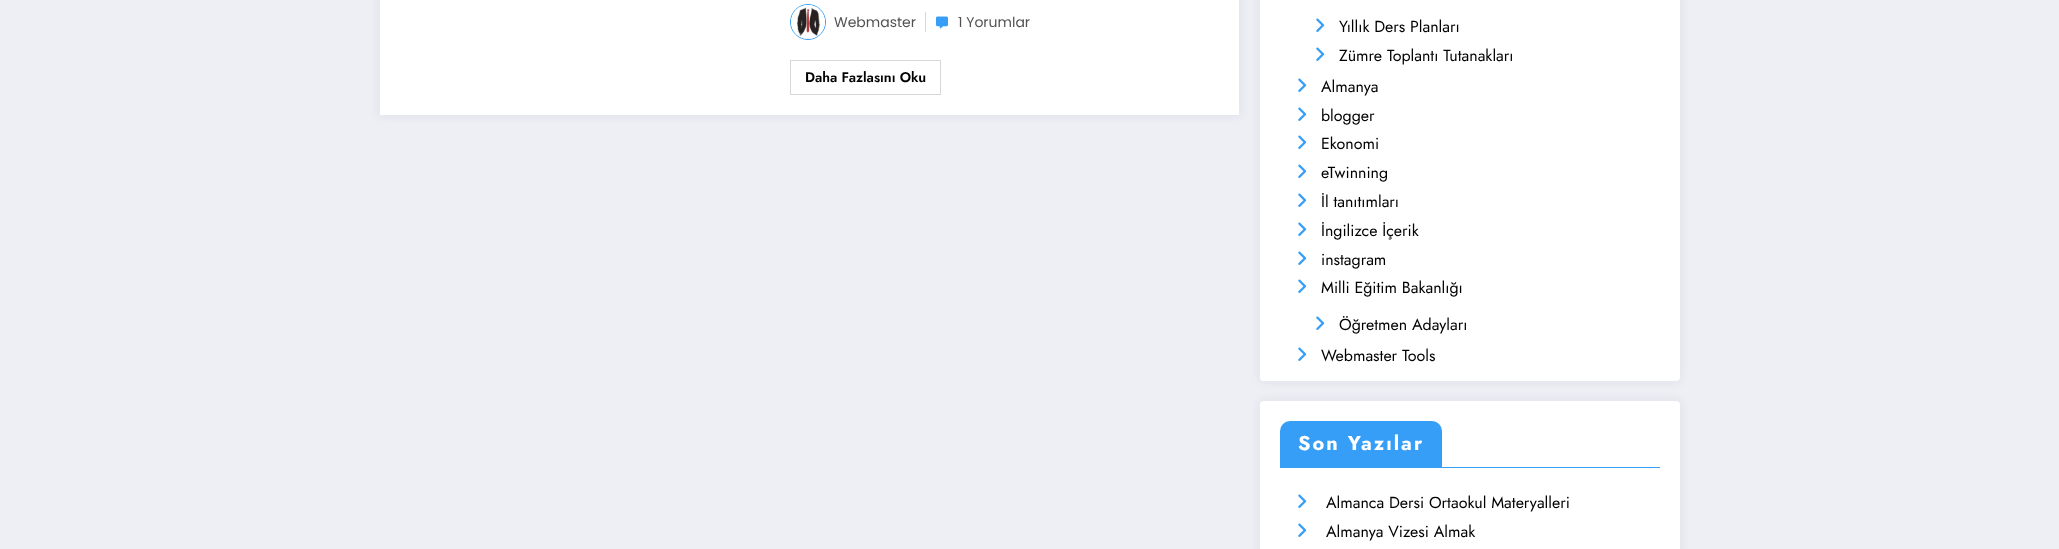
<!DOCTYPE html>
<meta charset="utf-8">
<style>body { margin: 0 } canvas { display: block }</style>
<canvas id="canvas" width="2059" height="549"></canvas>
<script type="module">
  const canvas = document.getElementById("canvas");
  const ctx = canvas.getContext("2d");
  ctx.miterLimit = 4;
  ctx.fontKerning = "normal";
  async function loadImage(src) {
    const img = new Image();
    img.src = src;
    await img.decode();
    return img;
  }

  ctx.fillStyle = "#eeeef5";
  ctx.fillRect(0, 0, 2059, 549);
  ctx.fillStyle = "rgba(23, 23, 35, 0.05)";
  ctx.filter = "blur(4px)";
  ctx.beginPath();
  ctx.rect(378, -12, 863, 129);
  ctx.fill();
  ctx.filter = "none";
  ctx.fillStyle = "#ffffff";
  ctx.fillRect(380, 0, 859, 115);
  ctx.beginPath();
  ctx.arc(808, 22, 17.5, 0, Math.PI * 2);
  ctx.strokeStyle = "#369ef6";
  ctx.stroke();
  ctx.drawImage(await loadImage("img1.png"), 791, 5, 34, 34);
  ctx.font = "14px Poppins";
  ctx.fillStyle = "#525252";
  ctx.fillText("Webmaster", 834, 27);
  ctx.fillStyle = "#d7d7d7";
  ctx.fillRect(925, 12, 1, 20);
  ctx.drawImage(await loadImage("img2.png"), 936, 16, 12, 13);
  ctx.fillStyle = "#525252";
  ctx.fillText("1 Yorumlar", 958, 27);
  ctx.strokeStyle = "#d7d7d7";
  ctx.strokeRect(790.5, 60.5, 150, 34);
  ctx.font = "600 14px Jost";
  ctx.fillStyle = "#000000";
  ctx.fillText("Daha Fazlasını Oku", 805, 82);
  ctx.fillStyle = "rgba(23, 23, 35, 0.05)";
  ctx.filter = "blur(4px)";
  ctx.beginPath();
  ctx.roundRect(1258, -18, 424, 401, 6);
  ctx.fill();
  ctx.filter = "none";
  ctx.fillStyle = "#ffffff";
  ctx.beginPath();
  ctx.roundRect(1260, -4, 420, 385, 4);
  ctx.fill();
  ctx.drawImage(await loadImage("img3.png"), 1316, 18, 9, 14);
  ctx.font = "16px Jost";
  ctx.fillStyle = "#000000";
  ctx.fillText("Yıllık Ders Planları", 1339, 32);
  ctx.drawImage(await loadImage("img3.png"), 1316, 47, 9, 14);
  ctx.fillText("Zümre Toplantı Tutanakları", 1339, 61);
  ctx.drawImage(await loadImage("img3.png"), 1298, 78, 9, 14);
  ctx.fillText("Almanya", 1321, 92);
  ctx.drawImage(await loadImage("img3.png"), 1298, 107, 9, 14);
  ctx.fillText("blogger", 1321, 121);
  ctx.drawImage(await loadImage("img3.png"), 1298, 135, 9, 14);
  ctx.fillText("Ekonomi", 1321, 149);
  ctx.drawImage(await loadImage("img3.png"), 1298, 164, 9, 14);
  ctx.fillText("eTwinning", 1321, 178);
  ctx.drawImage(await loadImage("img3.png"), 1298, 193, 9, 14);
  ctx.fillText("İl tanıtımları", 1321, 207);
  ctx.drawImage(await loadImage("img3.png"), 1298, 222, 9, 14);
  ctx.fillText("İngilizce İçerik", 1321, 236);
  ctx.drawImage(await loadImage("img3.png"), 1298, 251, 9, 14);
  ctx.fillText("instagram", 1321, 265);
  ctx.drawImage(await loadImage("img3.png"), 1298, 279, 9, 14);
  ctx.fillText("Milli Eğitim Bakanlığı", 1321, 293);
  ctx.drawImage(await loadImage("img3.png"), 1316, 316, 9, 14);
  ctx.fillText("Öğretmen Adayları", 1339, 330);
  ctx.drawImage(await loadImage("img3.png"), 1298, 347, 9, 14);
  ctx.fillText("Webmaster Tools", 1321, 361);
  ctx.fillStyle = "rgba(23, 23, 35, 0.05)";
  ctx.filter = "blur(4px)";
  ctx.beginPath();
  ctx.roundRect(1258, 399, 424, 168, 6);
  ctx.fill();
  ctx.filter = "none";
  ctx.fillStyle = "#ffffff";
  ctx.beginPath();
  ctx.roundRect(1260, 401, 420, 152, 4);
  ctx.fill();
  ctx.fillStyle = "#369ef6";
  ctx.fillRect(1280, 467, 380, 1);
  ctx.beginPath();
  ctx.roundRect(1280, 421, 162, 46, [10, 10, 0, 0]);
  ctx.fill();
  ctx.letterSpacing = "2px";
  ctx.font = "bold 20px Jost";
  ctx.fillStyle = "#ffffff";
  ctx.fillText("Son Yazılar", 1298, 450);
  ctx.drawImage(await loadImage("img3.png"), 1298, 494, 9, 14);
  ctx.letterSpacing = "0px";
  ctx.font = "16px Jost";
  ctx.fillStyle = "#000000";
  ctx.fillText("Almanca Dersi Ortaokul Materyalleri", 1326, 508);
  ctx.drawImage(await loadImage("img3.png"), 1298, 523, 9, 14);
  ctx.fillText("Almanya Vizesi Almak", 1326, 537);
</script>
